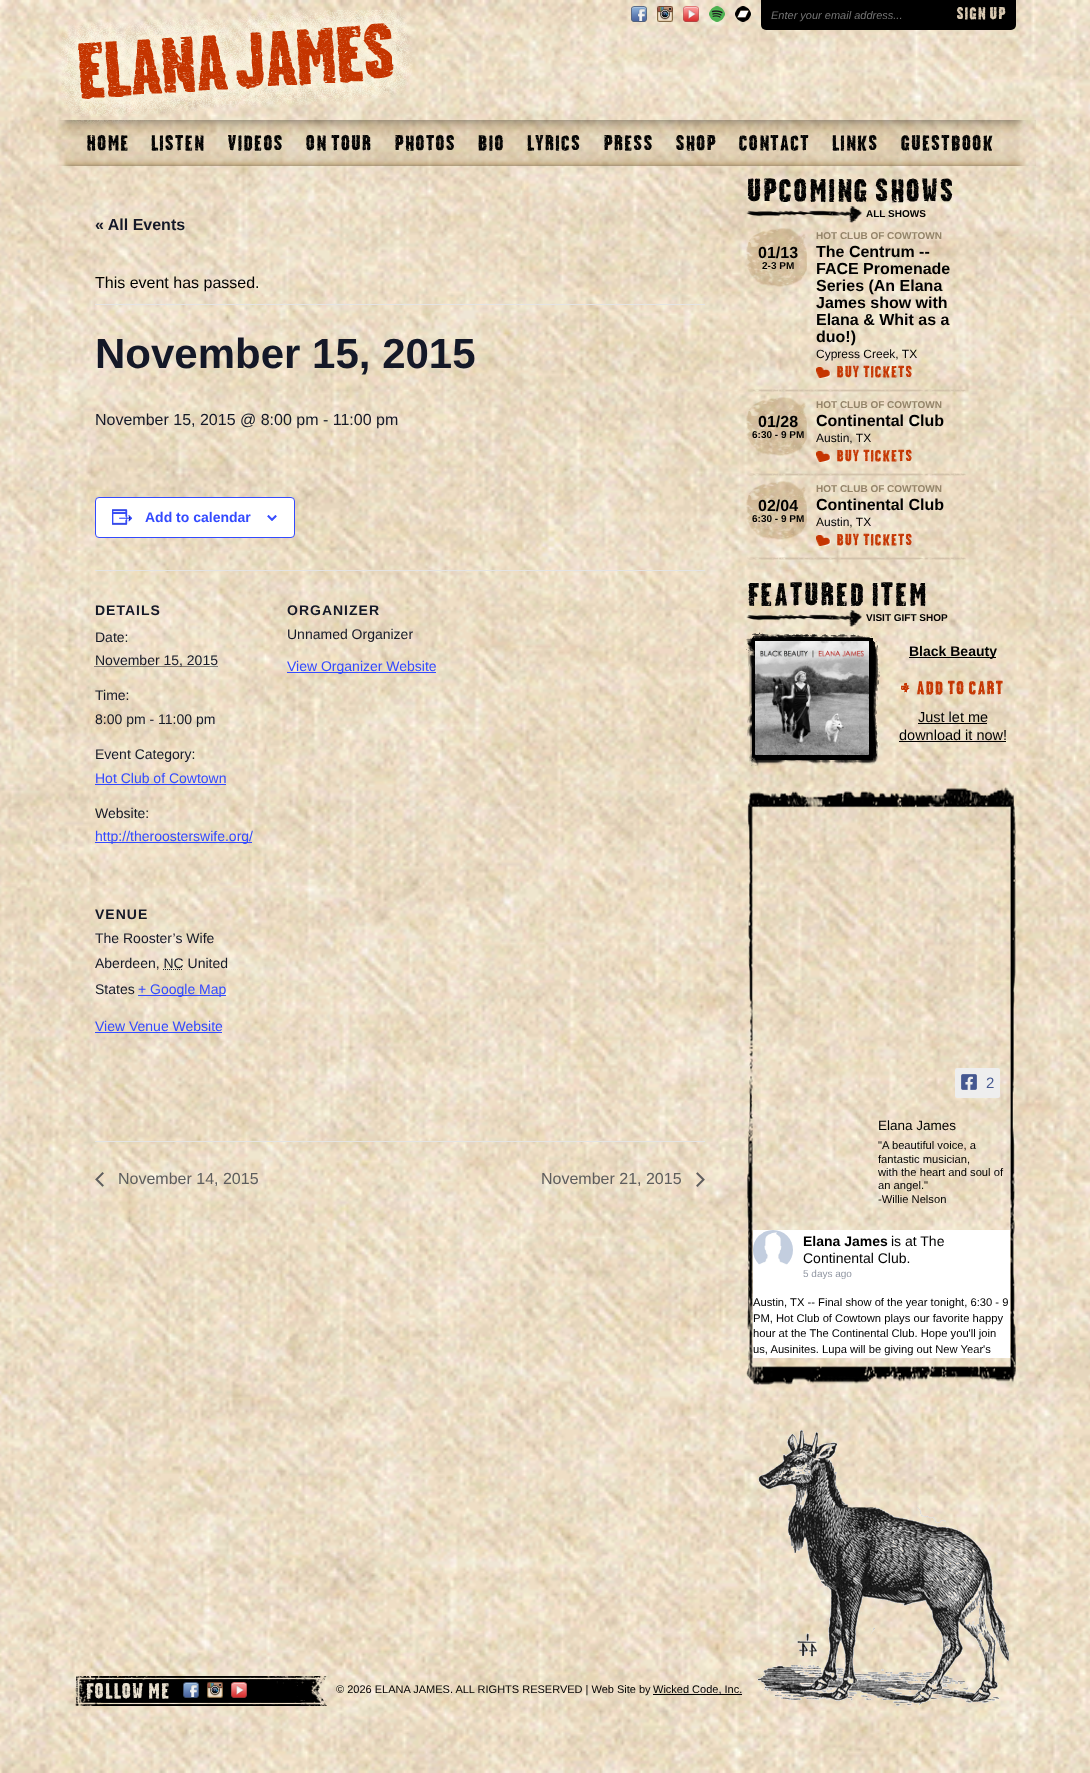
<!DOCTYPE html>
<meta charset="utf-8">
<style>body { margin: 0 } canvas { display: block }</style>
<canvas id="canvas" width="1090" height="1773"></canvas>
<script type="module">
  const canvas = document.getElementById("canvas");
  const ctx = canvas.getContext("2d");
  ctx.miterLimit = 4;
  ctx.fontKerning = "normal";
  async function loadImage(src) {
    const img = new Image();
    img.src = src;
    await img.decode();
    return img;
  }

  ctx.fillStyle = "#ffffff";
  ctx.fillRect(0, 0, 1090, 1773);
  ctx.drawImage(await loadImage("img1.png"), 0, 0, 1090, 1773);
  ctx.drawImage(await loadImage("img2.png"), 58, 10, 355, 106);
  ctx.drawImage(await loadImage("img3.png"), 631, 6, 16, 16);
  ctx.drawImage(await loadImage("img4.png"), 657, 6, 16, 16);
  ctx.drawImage(await loadImage("img5.png"), 683, 6, 16, 16);
  ctx.drawImage(await loadImage("img6.png"), 709, 6, 16, 16);
  ctx.drawImage(await loadImage("img7.png"), 735, 6, 16, 16);
  ctx.fillStyle = "#000000";
  ctx.beginPath();
  ctx.roundRect(761, 0, 255, 30, [0, 0, 5, 5]);
  ctx.fill();
  ctx.font = "italic 11px Liberation Sans";
  ctx.fillStyle = "#757575";
  ctx.fillText("Enter your email address...", 771, 19);
  ctx.font = "16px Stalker";
  ctx.fillStyle = "#deceb6";
  ctx.fillText("Sign Up", 956, 19);
  ctx.drawImage(await loadImage("img8.png"), 57, 120, 979, 46);
  ctx.font = "20px Stalker";
  ctx.fillStyle = "#000000";
  ctx.fillText("Home", 86, 150);
  ctx.fillText("Listen", 150, 150);
  ctx.fillText("Videos", 227, 150);
  ctx.fillText("On Tour", 305, 150);
  ctx.fillText("Photos", 394, 150);
  ctx.fillText("Bio", 477, 150);
  ctx.fillText("Lyrics", 526, 150);
  ctx.fillText("Press", 603, 150);
  ctx.fillText("Shop", 675, 150);
  ctx.fillText("Contact", 738, 150);
  ctx.fillText("Links", 831, 150);
  ctx.fillText("Guestbook", 900, 150);
  ctx.font = "bold 16px Liberation Sans";
  ctx.fillStyle = "#141827";
  ctx.fillText("« All Events", 95, 230);
  ctx.fillStyle = "#e4e4e4";
  ctx.fillRect(95, 304, 610, 1);
  ctx.font = "16px Liberation Sans";
  ctx.fillStyle = "#000000";
  ctx.fillText("This event has passed.", 95, 288);
  ctx.font = "bold 42px Liberation Sans";
  ctx.fillStyle = "#141827";
  ctx.fillText("November 15, 2015", 95, 368);
  ctx.font = "16px Liberation Sans";
  ctx.fillText("November 15, 2015 @ 8:00 pm - 11:00 pm", 95, 425);
  ctx.fillStyle = "#ffffff";
  ctx.beginPath();
  ctx.roundRect(95.5, 497.5, 199, 40, 3.5);
  ctx.fill();
  ctx.strokeStyle = "#334aff";
  ctx.stroke();
  ctx.drawImage(await loadImage("img9.png"), 112, 509, 21, 16);
  ctx.font = "bold 14px Liberation Sans";
  ctx.fillStyle = "#334aff";
  ctx.fillText("Add to calendar", 145, 522);
  ctx.drawImage(await loadImage("img10.png"), 267, 515, 10, 6);
  ctx.fillStyle = "#e4e4e4";
  ctx.fillRect(95, 570, 610, 1);
  ctx.letterSpacing = "1px";
  ctx.fillStyle = "#141827";
  ctx.fillText("DETAILS", 95, 615);
  ctx.letterSpacing = "0px";
  ctx.font = "14px Liberation Sans";
  ctx.fillText("Date:", 95, 642);
  ctx.beginPath();
  ctx.moveTo(94.5, 666.5);
  ctx.lineTo(217.5, 666.5);
  ctx.strokeStyle = "#141827";
  ctx.setLineDash([1, 1]);
  ctx.stroke();
  ctx.fillText("November 15, 2015", 95, 665);
  ctx.fillText("Time:", 95, 700);
  ctx.fillText("8:00 pm - 11:00 pm", 95, 724);
  ctx.fillText("Event Category:", 95, 759);
  ctx.fillStyle = "#334aff";
  ctx.fillText("Hot Club of Cowtown", 95, 783);
  ctx.fillRect(95, 784, 131, 1);
  ctx.fillStyle = "#141827";
  ctx.fillText("Website:", 95, 818);
  ctx.fillStyle = "#334aff";
  ctx.fillRect(95, 842, 157, 1);
  ctx.fillText("http://theroosterswife.org/", 95, 841);
  ctx.letterSpacing = "1px";
  ctx.font = "bold 14px Liberation Sans";
  ctx.fillStyle = "#141827";
  ctx.fillText("ORGANIZER", 287, 615);
  ctx.letterSpacing = "0px";
  ctx.font = "14px Liberation Sans";
  ctx.fillText("Unnamed Organizer", 287, 639);
  ctx.fillStyle = "#334aff";
  ctx.fillRect(287, 672, 149, 1);
  ctx.fillText("View Organizer Website", 287, 671);
  ctx.letterSpacing = "1px";
  ctx.font = "bold 14px Liberation Sans";
  ctx.fillStyle = "#141827";
  ctx.fillText("VENUE", 95, 919);
  ctx.letterSpacing = "0px";
  ctx.font = "14px Liberation Sans";
  ctx.fillText("The Rooster’s Wife", 95, 943);
  ctx.fillText("Aberdeen, NC United", 95, 968);
  ctx.beginPath();
  ctx.moveTo(163, 969.5);
  ctx.lineTo(183, 969.5);
  ctx.stroke();
  ctx.fillText("States", 95, 994);
  ctx.fillStyle = "#334aff";
  ctx.fillRect(138, 995, 88, 1);
  ctx.fillText("+ Google Map", 138, 994);
  ctx.fillText("View Venue Website", 95, 1031);
  ctx.fillRect(95, 1032, 127, 1);
  ctx.fillStyle = "#e4e4e4";
  ctx.fillRect(95, 1141, 610, 1);
  ctx.drawImage(await loadImage("img11.png"), 95, 1172, 9, 15);
  ctx.font = "16px Liberation Sans";
  ctx.fillStyle = "#5d5d5d";
  ctx.fillText("November 14, 2015", 118, 1184);
  ctx.fillText("November 21, 2015", 541, 1184);
  ctx.drawImage(await loadImage("img12.png"), 696, 1172, 9, 15);
  ctx.font = "30px Stalker";
  ctx.fillStyle = "#000000";
  ctx.fillText("Upcoming Shows", 746, 201);
  ctx.drawImage(await loadImage("img13.png"), 746, 206, 116, 17);
  ctx.font = "bold 10px Liberation Sans";
  ctx.fillText("ALL SHOWS", 866, 217);
  ctx.drawImage(await loadImage("img14.png"), 748, 389, 218, 3);
  ctx.drawImage(await loadImage("img15.png"), 746, 228, 61, 59);
  ctx.font = "bold 16px Liberation Sans";
  ctx.fillText("01/13", 758, 258);
  ctx.font = "bold 10px Liberation Sans";
  ctx.fillText("2-3 PM", 762, 269);
  ctx.fillStyle = "#948469";
  ctx.fillText("HOT CLUB OF COWTOWN", 816, 239);
  ctx.font = "bold 16px Liberation Sans";
  ctx.fillStyle = "#000000";
  ctx.fillText("The Centrum --", 816, 257);
  ctx.fillText("FACE Promenade", 816, 274);
  ctx.fillText("Series (An Elana", 816, 291);
  ctx.fillText("James show with", 816, 308);
  ctx.fillText("Elana & Whit as a", 816, 325);
  ctx.fillText("duo!)", 816, 342);
  ctx.font = "12px Liberation Sans";
  ctx.fillText("Cypress Creek, TX", 816, 358);
  ctx.drawImage(await loadImage("img16.png"), 816, 367, 15, 11);
  ctx.font = "15px Stalker";
  ctx.fillStyle = "#c53500";
  ctx.fillText("Buy Tickets", 836, 377);
  ctx.drawImage(await loadImage("img17.png"), 747, 473, 219, 3);
  ctx.drawImage(await loadImage("img18.png"), 746, 397, 61, 59);
  ctx.font = "bold 16px Liberation Sans";
  ctx.fillStyle = "#000000";
  ctx.fillText("01/28", 758, 427);
  ctx.font = "bold 10px Liberation Sans";
  ctx.fillText("6:30 - 9 PM", 752, 438);
  ctx.fillStyle = "#948469";
  ctx.fillText("HOT CLUB OF COWTOWN", 816, 408);
  ctx.font = "bold 16px Liberation Sans";
  ctx.fillStyle = "#000000";
  ctx.fillText("Continental Club", 816, 426);
  ctx.font = "12px Liberation Sans";
  ctx.fillText("Austin, TX", 816, 442);
  ctx.drawImage(await loadImage("img19.png"), 816, 451, 15, 11);
  ctx.font = "15px Stalker";
  ctx.fillStyle = "#c53500";
  ctx.fillText("Buy Tickets", 836, 461);
  ctx.drawImage(await loadImage("img20.png"), 747, 557, 219, 3);
  ctx.drawImage(await loadImage("img21.png"), 746, 481, 61, 59);
  ctx.font = "bold 16px Liberation Sans";
  ctx.fillStyle = "#000000";
  ctx.fillText("02/04", 758, 511);
  ctx.font = "bold 10px Liberation Sans";
  ctx.fillText("6:30 - 9 PM", 752, 522);
  ctx.fillStyle = "#948469";
  ctx.fillText("HOT CLUB OF COWTOWN", 816, 492);
  ctx.font = "bold 16px Liberation Sans";
  ctx.fillStyle = "#000000";
  ctx.fillText("Continental Club", 816, 510);
  ctx.font = "12px Liberation Sans";
  ctx.fillText("Austin, TX", 816, 526);
  ctx.drawImage(await loadImage("img22.png"), 816, 535, 15, 11);
  ctx.font = "15px Stalker";
  ctx.fillStyle = "#c53500";
  ctx.fillText("Buy Tickets", 836, 545);
  ctx.font = "30px Stalker";
  ctx.fillStyle = "#000000";
  ctx.fillText("Featured Item", 746, 605);
  ctx.drawImage(await loadImage("img23.png"), 746, 610, 116, 17);
  ctx.font = "bold 10px Liberation Sans";
  ctx.fillText("VISIT GIFT SHOP", 866, 621);
  ctx.drawImage(await loadImage("img24.png"), 746, 632, 134, 134);
  ctx.fillRect(909, 657, 87, 1);
  ctx.font = "bold 14px Liberation Sans";
  ctx.fillText("Black Beauty", 909, 656);
  ctx.drawImage(await loadImage("img25.png"), 901, 683, 9, 10);
  ctx.font = "17.5px Stalker";
  ctx.fillStyle = "#c53500";
  ctx.fillText("Add to Cart", 916, 694);
  ctx.font = "14.5px Liberation Sans";
  ctx.fillStyle = "#000000";
  ctx.fillText("Just let me", 918, 722);
  ctx.fillRect(918, 723, 69, 1);
  ctx.fillText("download it now!", 899, 740);
  ctx.fillRect(899, 741, 107, 1);
  ctx.drawImage(await loadImage("img26.png"), 746, 787, 270, 598);
  ctx.fillStyle = "#eeeeee";
  ctx.beginPath();
  ctx.roundRect(955, 1068, 45, 30, 2);
  ctx.fill();
  ctx.drawImage(await loadImage("img27.png"), 961, 1074, 16, 16);
  ctx.font = "15px Liberation Sans";
  ctx.fillStyle = "#445790";
  ctx.fillText("2", 986, 1088);
  ctx.font = "13.5px Liberation Sans";
  ctx.fillStyle = "#000000";
  ctx.fillText("Elana James", 878, 1130);
  ctx.font = "11.2px Liberation Sans";
  ctx.fillText("\"A beautiful voice, a", 878, 1149);
  ctx.fillText("fantastic musician,", 878, 1163);
  ctx.fillText("with the heart and soul of", 878, 1176);
  ctx.fillText("an angel.\"", 878, 1189);
  ctx.fillText("-Willie Nelson", 878, 1203);
  ctx.fillStyle = "#ffffff";
  ctx.fillRect(753, 1230, 257, 128);
  ctx.drawImage(await loadImage("img28.png"), 753, 1230, 40, 35);
  ctx.font = "bold 14px Liberation Sans";
  ctx.fillStyle = "#000000";
  ctx.fillText("Elana James", 803, 1246);
  ctx.font = "14px Liberation Sans";
  ctx.fillText("is at The", 891, 1246);
  ctx.fillText("Continental Club.", 803, 1263);
  ctx.font = "10px Liberation Sans";
  ctx.fillStyle = "#9197a3";
  ctx.fillText("5 days ago", 803, 1277);
  ctx.font = "11.2px Liberation Sans";
  ctx.fillStyle = "#000000";
  ctx.fillText("Austin, TX -- Final show of the year tonight, 6:30 - 9", 753, 1306);
  ctx.fillText("PM, Hot Club of Cowtown plays our favorite happy", 753, 1322);
  ctx.fillText("hour at the The Continental Club. Hope you'll join", 753, 1337);
  ctx.fillText("us, Ausinites. Lupa will be giving out New Year's", 753, 1353);
  ctx.drawImage(await loadImage("img29.png"), 75, 1676, 252, 30);
  ctx.font = "20px Stalker";
  ctx.fillStyle = "#ebe2d1";
  ctx.fillText("FOLLOW ME", 85, 1698);
  ctx.drawImage(await loadImage("img30.png"), 183, 1682, 16, 16);
  ctx.drawImage(await loadImage("img31.png"), 207, 1682, 16, 16);
  ctx.drawImage(await loadImage("img32.png"), 231, 1682, 16, 16);
  ctx.font = "11px Liberation Sans";
  ctx.fillStyle = "#000000";
  ctx.fillText("© 2026 ELANA JAMES. ALL RIGHTS RESERVED | Web Site by", 336, 1693);
  ctx.fillRect(653, 1694, 89, 1);
  ctx.fillText("Wicked Code, Inc.", 653, 1693);
  ctx.drawImage(await loadImage("img33.png"), 757, 1430, 252, 276);
</script>
